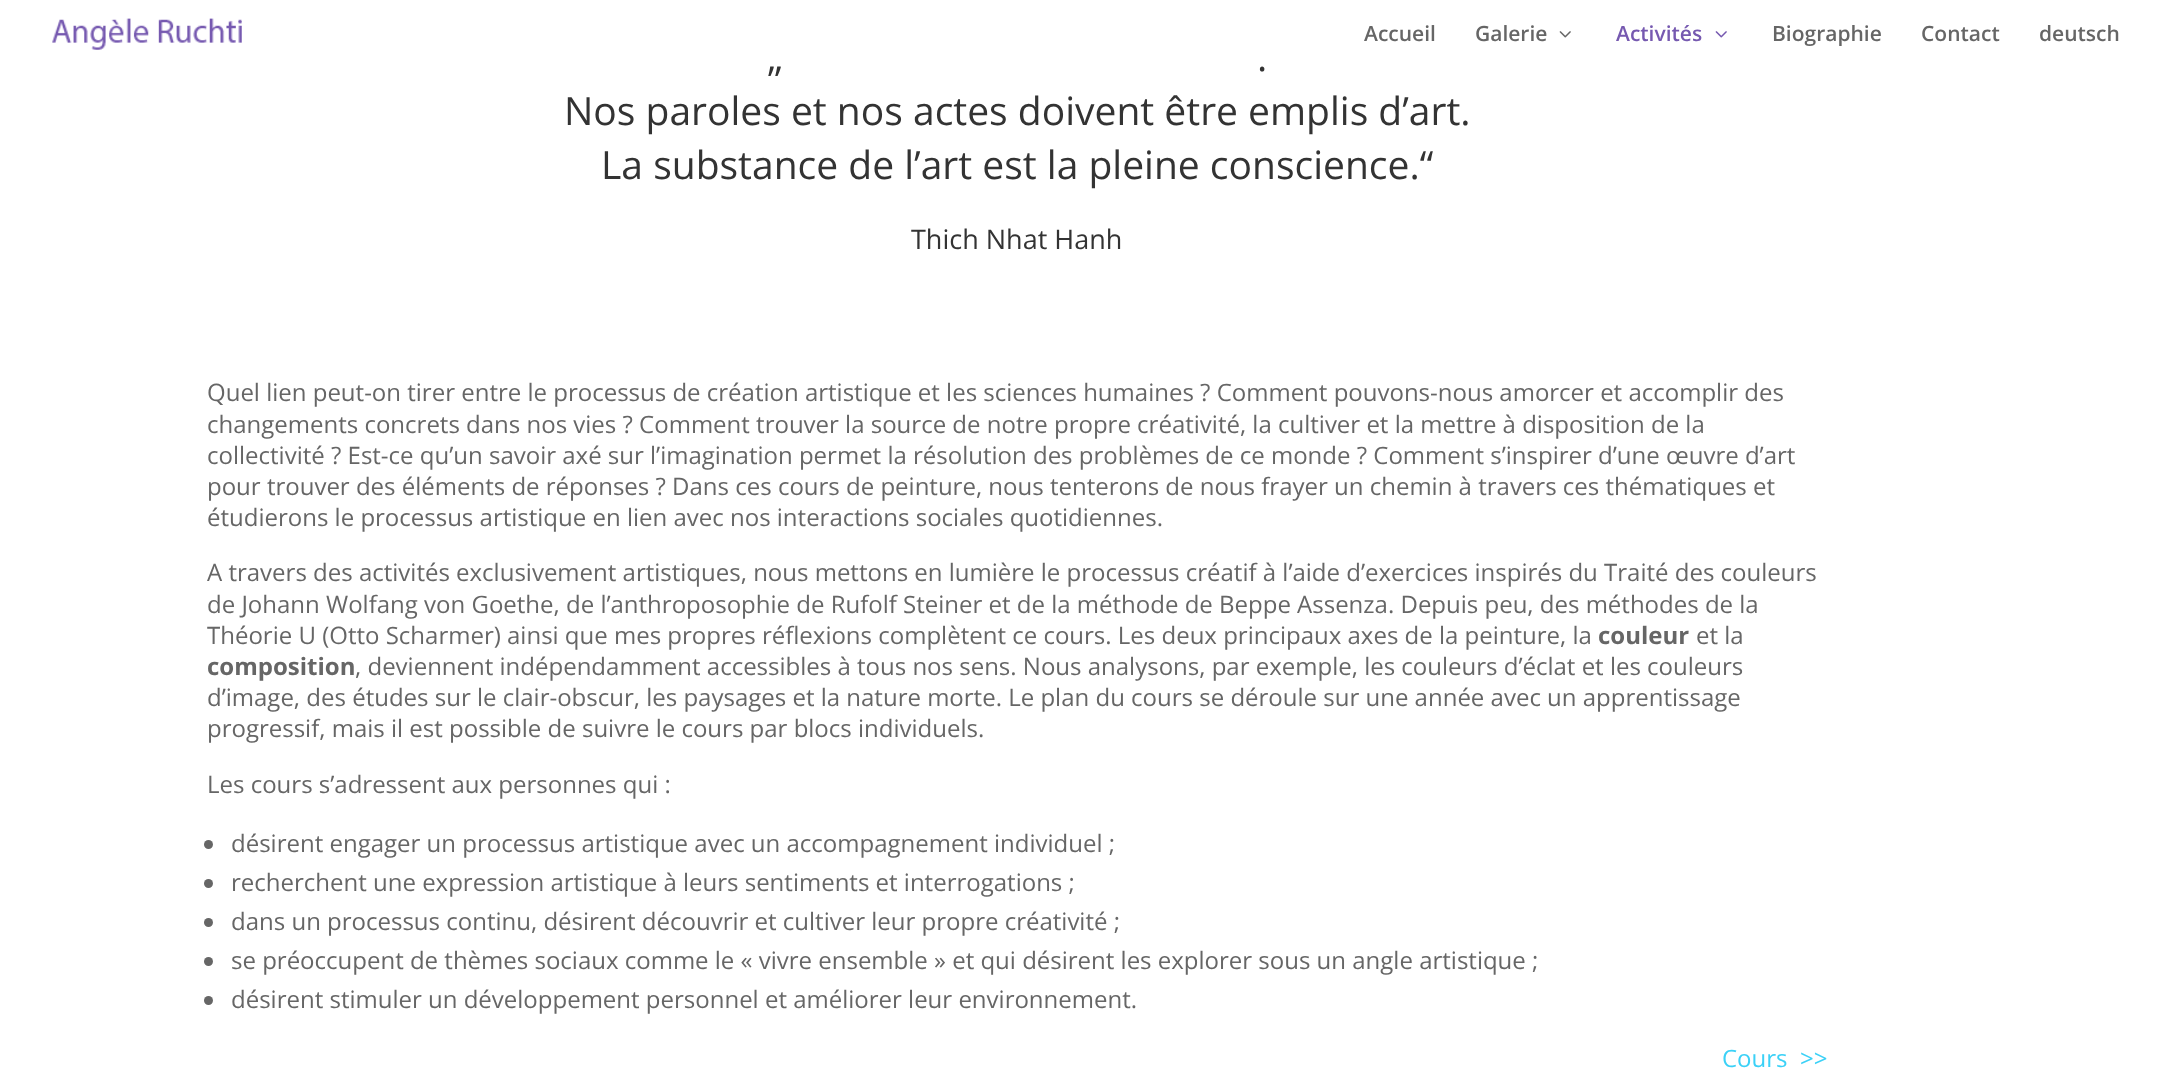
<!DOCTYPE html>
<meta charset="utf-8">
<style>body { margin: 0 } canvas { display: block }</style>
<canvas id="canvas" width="2164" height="1077"></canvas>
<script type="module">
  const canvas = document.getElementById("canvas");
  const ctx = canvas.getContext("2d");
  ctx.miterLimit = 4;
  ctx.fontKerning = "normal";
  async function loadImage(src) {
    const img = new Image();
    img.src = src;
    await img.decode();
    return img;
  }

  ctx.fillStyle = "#ffffff";
  ctx.fillRect(0, 0, 2164, 1077);
  ctx.drawImage(await loadImage("img1.png"), 52, 18, 190, 32);
  ctx.font = "600 21px Open Sans";
  ctx.fillStyle = "#666666";
  ctx.fillText("Accueil", 1364, 41);
  ctx.fillText("Galerie", 1475, 41);
  ctx.drawImage(await loadImage("img2.png"), 1559, 31, 12, 7);
  ctx.fillStyle = "#7659b0";
  ctx.fillText("Activités", 1616, 41);
  ctx.drawImage(await loadImage("img3.png"), 1715, 31, 12, 7);
  ctx.fillStyle = "#666666";
  ctx.fillText("Biographie", 1772, 41);
  ctx.fillText("Contact", 1921, 41);
  ctx.fillText("deutsch", 2039, 41);
  ctx.font = "39px Open Sans";
  ctx.fillStyle = "#333333";
  ctx.fillText("„", 767, 71);
  ctx.fillText(".", 1257, 71);
  ctx.fillText("Nos paroles et nos actes doivent être emplis d’art.", 564, 125);
  ctx.fillText("La substance de l’art est la pleine conscience.“", 601, 179);
  ctx.font = "27px Open Sans";
  ctx.fillText("Thich Nhat Hanh", 911, 249);
  ctx.font = "24px Open Sans";
  ctx.fillStyle = "#666666";
  ctx.fillText("Quel lien peut-on tirer entre le processus de création artistique et les sciences humaines ? Comment pouvons-nous amorcer et accomplir des", 207, 401);
  ctx.fillText("changements concrets dans nos vies ? Comment trouver la source de notre propre créativité, la cultiver et la mettre à disposition de la", 207, 433);
  ctx.fillText("collectivité ? Est-ce qu’un savoir axé sur l’imagination permet la résolution des problèmes de ce monde ? Comment s’inspirer d’une œuvre d’art", 207, 464);
  ctx.fillText("pour trouver des éléments de réponses ? Dans ces cours de peinture, nous tenterons de nous frayer un chemin à travers ces thématiques et", 207, 495);
  ctx.fillText("étudierons le processus artistique en lien avec nos interactions sociales quotidiennes.", 207, 526);
  ctx.fillText("A travers des activités exclusivement artistiques, nous mettons en lumière le processus créatif à l’aide d’exercices inspirés du Traité des couleurs", 207, 581);
  ctx.fillText("de Johann Wolfang von Goethe, de l’anthroposophie de Rufolf Steiner et de la méthode de Beppe Assenza. Depuis peu, des méthodes de la", 207, 613);
  ctx.fillText("Théorie U (Otto Scharmer) ainsi que mes propres réflexions complètent ce cours. Les deux principaux axes de la peinture, la", 207, 644);
  ctx.font = "bold 24px Open Sans";
  ctx.fillText("couleur", 1598, 644);
  ctx.font = "24px Open Sans";
  ctx.fillText("et la", 1696, 644);
  ctx.font = "bold 24px Open Sans";
  ctx.fillText("composition", 207, 675);
  ctx.font = "24px Open Sans";
  ctx.fillText(", deviennent indépendamment accessibles à tous nos sens. Nous analysons, par exemple, les couleurs d’éclat et les couleurs", 355, 675);
  ctx.fillText("d’image, des études sur le clair-obscur, les paysages et la nature morte. Le plan du cours se déroule sur une année avec un apprentissage", 207, 706);
  ctx.fillText("progressif, mais il est possible de suivre le cours par blocs individuels.", 207, 737);
  ctx.fillText("Les cours s’adressent aux personnes qui :", 207, 793);
  ctx.beginPath();
  ctx.arc(208.5, 844.5, 4.5, 0, Math.PI * 2);
  ctx.fill();
  ctx.fillText("désirent engager un processus artistique avec un accompagnement individuel ;", 231, 852);
  ctx.beginPath();
  ctx.arc(208.5, 883.5, 4.5, 0, Math.PI * 2);
  ctx.fill();
  ctx.fillText("recherchent une expression artistique à leurs sentiments et interrogations ;", 231, 891);
  ctx.beginPath();
  ctx.arc(208.5, 922.5, 4.5, 0, Math.PI * 2);
  ctx.fill();
  ctx.fillText("dans un processus continu, désirent découvrir et cultiver leur propre créativité ;", 231, 930);
  ctx.beginPath();
  ctx.arc(208.5, 961.5, 4.5, 0, Math.PI * 2);
  ctx.fill();
  ctx.fillText("se préoccupent de thèmes sociaux comme le « vivre ensemble » et qui désirent les explorer sous un angle artistique ;", 231, 969);
  ctx.beginPath();
  ctx.arc(208.5, 1000.5, 4.5, 0, Math.PI * 2);
  ctx.fill();
  ctx.fillText("désirent stimuler un développement personnel et améliorer leur environnement.", 231, 1008);
  ctx.fillStyle = "#3bd1f7";
  ctx.fillText("Cours  >>", 1722, 1067);
</script>
